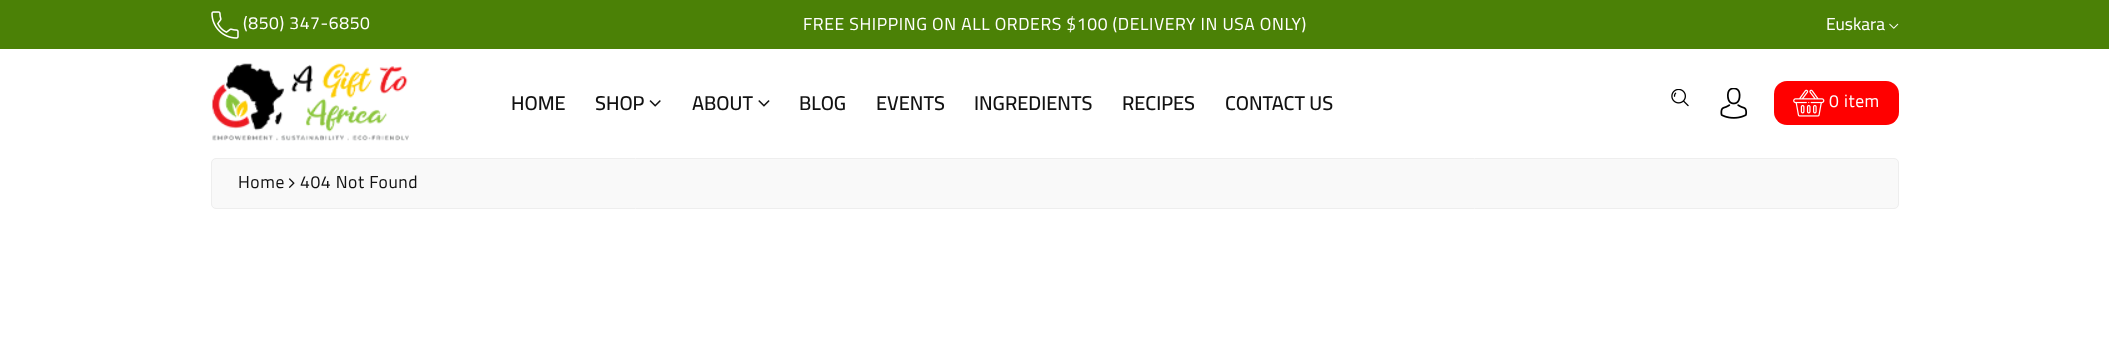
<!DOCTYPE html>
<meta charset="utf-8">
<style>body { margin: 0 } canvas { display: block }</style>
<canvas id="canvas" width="2109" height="350"></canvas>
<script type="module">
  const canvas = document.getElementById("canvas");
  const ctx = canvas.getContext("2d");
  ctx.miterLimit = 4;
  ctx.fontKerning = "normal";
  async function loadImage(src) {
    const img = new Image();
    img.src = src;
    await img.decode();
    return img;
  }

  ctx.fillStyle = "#ffffff";
  ctx.fillRect(0, 0, 2109, 350);
  ctx.fillStyle = "#4b8106";
  ctx.fillRect(0, 0, 2109, 49);
  ctx.drawImage(await loadImage("img1.png"), 211, 11, 28, 28);
  ctx.letterSpacing = "0.62px";
  ctx.font = "17.5px Cairo";
  ctx.fillStyle = "#ffffff";
  ctx.fillText("(850) 347-6850", 243, 29);
  ctx.fillText("FREE SHIPPING ON ALL ORDERS $100 (DELIVERY IN USA ONLY)", 803, 30);
  ctx.letterSpacing = "0px";
  ctx.fillText("Euskara", 1826, 30);
  ctx.drawImage(await loadImage("img2.png"), 1889, 23, 10, 6);
  ctx.drawImage(await loadImage("img3.png"), 211, 63, 198, 78);
  ctx.font = "600 20px Cairo";
  ctx.fillStyle = "#121212";
  ctx.fillText("HOME", 511, 110);
  ctx.fillText("SHOP", 595, 110);
  ctx.drawImage(await loadImage("img4.png"), 649, 100, 12, 7);
  ctx.fillText("ABOUT", 692, 110);
  ctx.drawImage(await loadImage("img5.png"), 758, 100, 12, 7);
  ctx.fillText("BLOG", 799, 110);
  ctx.fillText("EVENTS", 876, 110);
  ctx.fillText("INGREDIENTS", 974, 110);
  ctx.fillText("RECIPES", 1122, 110);
  ctx.fillText("CONTACT US", 1225, 110);
  ctx.drawImage(await loadImage("img6.png"), 1671, 89, 18, 18);
  ctx.drawImage(await loadImage("img7.png"), 1720, 88, 28, 31);
  ctx.fillStyle = "#ff0000";
  ctx.beginPath();
  ctx.roundRect(1774, 81, 125, 44, 13);
  ctx.fill();
  ctx.drawImage(await loadImage("img8.png"), 1793, 89, 32, 28);
  ctx.letterSpacing = "0.62px";
  ctx.font = "17.5px Cairo";
  ctx.fillStyle = "#ffffff";
  ctx.fillText("0 item", 1829, 107);
  ctx.fillStyle = "#f9f9f9";
  ctx.beginPath();
  ctx.roundRect(211.5, 158.5, 1687, 50, 4.5);
  ctx.fill();
  ctx.strokeStyle = "#eeeeee";
  ctx.stroke();
  ctx.fillStyle = "#121212";
  ctx.fillText("Home", 238, 188);
  ctx.drawImage(await loadImage("img9.png"), 288, 178, 7, 10);
  ctx.fillText("404 Not Found", 300, 188);
</script>
